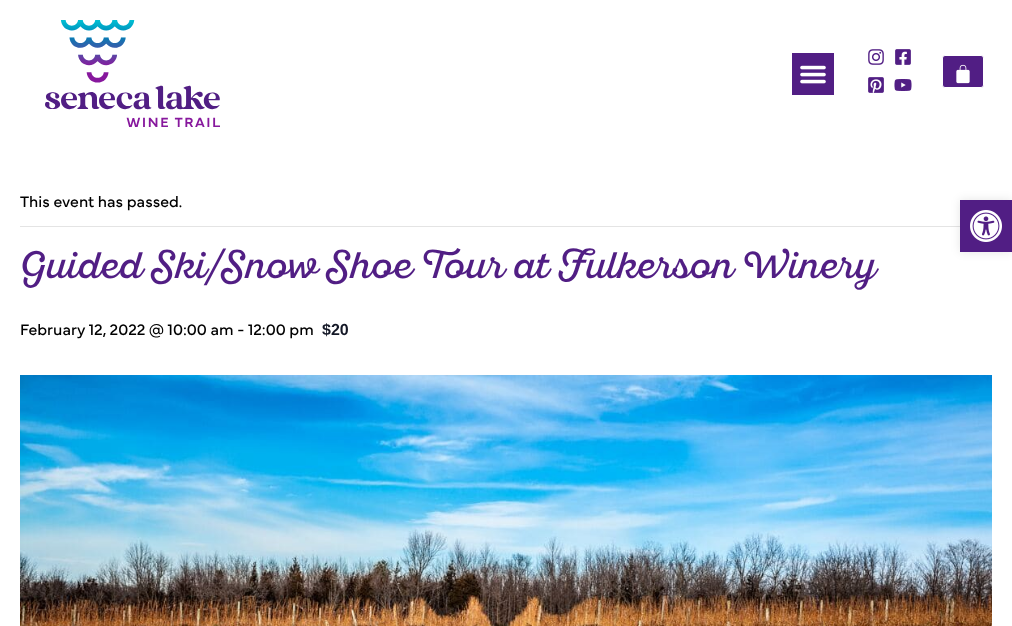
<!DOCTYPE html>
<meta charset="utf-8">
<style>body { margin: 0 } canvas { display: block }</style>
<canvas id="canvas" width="1012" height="626"></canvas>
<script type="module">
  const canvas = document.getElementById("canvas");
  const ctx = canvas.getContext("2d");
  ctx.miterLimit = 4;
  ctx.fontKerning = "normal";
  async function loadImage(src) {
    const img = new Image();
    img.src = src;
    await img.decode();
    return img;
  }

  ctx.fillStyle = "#ffffff";
  ctx.fillRect(0, 0, 1012, 626);
  ctx.drawImage(await loadImage("img1.png"), 45, 20, 175, 107);
  ctx.fillStyle = "#511e84";
  ctx.fillRect(792, 53, 42, 42);
  ctx.drawImage(await loadImage("img2.png"), 800, 65, 26, 19);
  ctx.drawImage(await loadImage("img3.png"), 868, 49, 16, 16);
  ctx.drawImage(await loadImage("img4.png"), 895, 49, 16, 16);
  ctx.drawImage(await loadImage("img5.png"), 868, 77, 16, 16);
  ctx.drawImage(await loadImage("img6.png"), 894, 79, 18, 12);
  ctx.beginPath();
  ctx.roundRect(942.5, 55.5, 41, 32, 2.5);
  ctx.fill();
  ctx.strokeStyle = "#ffffff";
  ctx.stroke();
  ctx.drawImage(await loadImage("img7.png"), 956, 64, 14, 20);
  ctx.fillStyle = "#e4e4e4";
  ctx.fillRect(20, 226, 940, 1);
  ctx.font = "16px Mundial";
  ctx.fillStyle = "#000000";
  ctx.fillText("This event has passed.", 20, 207);
  ctx.font = "36.8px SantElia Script";
  ctx.fillStyle = "#511e84";
  ctx.fillText("Guided Ski/Snow Shoe Tour at Fulkerson Winery", 20, 278);
  ctx.font = "16px Mundial";
  ctx.fillStyle = "#000000";
  ctx.fillText("February 12, 2022 @ 10:00 am - 12:00 pm", 20, 335);
  ctx.font = "bold 16px Liberation Sans";
  ctx.fillStyle = "#141827";
  ctx.fillText("$20", 322, 335);
  ctx.drawImage(await loadImage("img8.png"), 20, 375, 972, 251);
  ctx.fillStyle = "rgba(0, 0, 0, 0.1)";
  ctx.filter = "blur(5px)";
  ctx.beginPath();
  ctx.rect(960, 200, 52, 52);
  ctx.fill();
  ctx.filter = "none";
  ctx.fillStyle = "#511e84";
  ctx.fillRect(960, 200, 52, 52);
  ctx.drawImage(await loadImage("img9.png"), 970, 210, 32, 32);
</script>
